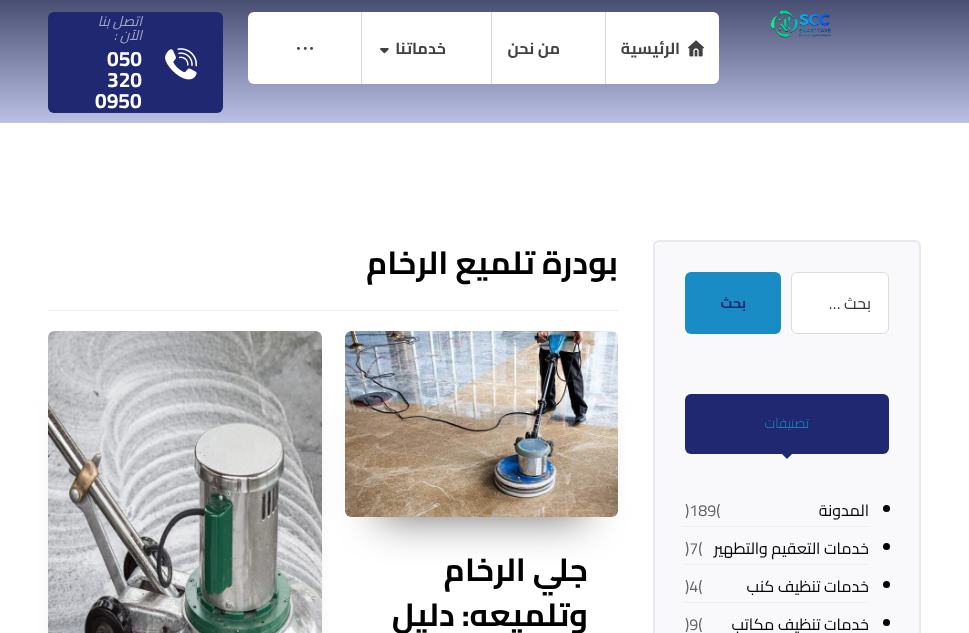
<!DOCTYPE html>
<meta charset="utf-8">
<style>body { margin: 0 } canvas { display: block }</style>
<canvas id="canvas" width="969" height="633"></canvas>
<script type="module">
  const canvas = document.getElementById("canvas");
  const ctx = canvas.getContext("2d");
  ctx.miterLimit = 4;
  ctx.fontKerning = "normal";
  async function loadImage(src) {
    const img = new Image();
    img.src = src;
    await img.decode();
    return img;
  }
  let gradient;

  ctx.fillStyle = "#ffffff";
  ctx.fillRect(0, 0, 969, 633);
  gradient = ctx.createLinearGradient(485, 123, 485, 0);
  gradient.addColorStop(0, "#bbc1e4");
  gradient.addColorStop(1, "#484e71");
  ctx.fillStyle = gradient;
  ctx.fillRect(0, 0, 969, 123);
  ctx.drawImage(await loadImage("img1.png"), 771, 10, 60, 28);
  ctx.fillStyle = "#ffffff";
  ctx.beginPath();
  ctx.roundRect(248, 12, 471, 72, 6);
  ctx.fill();
  ctx.fillStyle = "#d8d8d8";
  ctx.fillRect(605, 12, 1, 72);
  ctx.drawImage(await loadImage("img2.png"), 688, 40, 16, 17);
  ctx.direction = "rtl";
  ctx.font = "bold 16px Cairo";
  ctx.fillStyle = "#414141";
  ctx.fillText("الرئيسية", 680, 54);
  ctx.fillStyle = "#d8d8d8";
  ctx.fillRect(491, 12, 1, 72);
  ctx.fillStyle = "#414141";
  ctx.fillText("من نحن", 560, 54);
  ctx.fillStyle = "#d8d8d8";
  ctx.fillRect(361, 12, 1, 72);
  ctx.fillStyle = "#414141";
  ctx.fillText("خدماتنا", 446, 54);
  ctx.drawImage(await loadImage("img3.png"), 380, 48, 9, 6);
  ctx.drawImage(await loadImage("img4.png"), 297, 47, 16, 3);
  ctx.fillStyle = "#1f2870";
  ctx.beginPath();
  ctx.roundRect(48, 12, 175, 101, 6);
  ctx.fill();
  ctx.drawImage(await loadImage("img5.png"), 165, 48, 32, 32);
  ctx.font = "italic 14px Cairo";
  ctx.fillStyle = "#a5a9c6";
  ctx.fillText("اتصل بنا", 142, 26);
  ctx.fillText("الآن :", 142, 40);
  ctx.direction = "ltr";
  ctx.font = "bold 21px Cairo";
  ctx.fillStyle = "#ffffff";
  ctx.fillText("050", 107, 66);
  ctx.fillText("320", 107, 87);
  ctx.fillText("0950", 95, 108);
  ctx.fillStyle = "#f9f9fb";
  ctx.beginPath();
  ctx.roundRect(654, 241, 266, 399, 5);
  ctx.fill();
  ctx.strokeStyle = "#e8e8f0";
  ctx.lineWidth = 2;
  ctx.stroke();
  ctx.fillStyle = "#ffffff";
  ctx.beginPath();
  ctx.roundRect(791.5, 272.5, 97, 61, 5.5);
  ctx.fill();
  ctx.strokeStyle = "#dcdcdc";
  ctx.lineWidth = 1;
  ctx.stroke();
  ctx.direction = "rtl";
  ctx.font = "16px Cairo";
  ctx.fillStyle = "#333333";
  ctx.fillText("بحث …", 871, 309);
  ctx.fillStyle = "#1a8cc5";
  ctx.beginPath();
  ctx.roundRect(685, 272, 96, 62, 6);
  ctx.fill();
  ctx.font = "bold 14px Cairo";
  ctx.fillStyle = "#1f2870";
  ctx.fillText("بحث", 746, 308);
  ctx.beginPath();
  ctx.roundRect(685, 394, 204, 60, 6);
  ctx.fill();
  ctx.font = "300 14px Cairo";
  ctx.fillStyle = "#1a8cc5";
  ctx.fillText("تصنيفات", 809, 428);
  ctx.fillStyle = "#1f2870";
  ctx.beginPath();
  ctx.moveTo(787, 442);
  ctx.lineTo(795.5, 450.5);
  ctx.lineTo(787, 459);
  ctx.lineTo(778.5, 450.5);
  ctx.closePath();
  ctx.fill();
  ctx.fillStyle = "#000000";
  ctx.beginPath();
  ctx.arc(886.5, 508.5, 3.5, 0, Math.PI * 2);
  ctx.fill();
  ctx.fillStyle = "#ededee";
  ctx.fillRect(685, 526, 184, 1);
  ctx.font = "16px Cairo";
  ctx.fillStyle = "#000000";
  ctx.fillText("المدونة", 869, 516);
  ctx.direction = "ltr";
  ctx.fillStyle = "#646464";
  ctx.fillText(")189(", 685, 516);
  ctx.fillStyle = "#000000";
  ctx.beginPath();
  ctx.arc(886.5, 546.5, 3.5, 0, Math.PI * 2);
  ctx.fill();
  ctx.fillStyle = "#ededee";
  ctx.fillRect(685, 564, 184, 1);
  ctx.direction = "rtl";
  ctx.fillStyle = "#000000";
  ctx.fillText("خدمات التعقيم والتطهير", 869, 554);
  ctx.direction = "ltr";
  ctx.fillStyle = "#646464";
  ctx.fillText(")7(", 685, 554);
  ctx.fillStyle = "#000000";
  ctx.beginPath();
  ctx.arc(886.5, 584.5, 3.5, 0, Math.PI * 2);
  ctx.fill();
  ctx.fillStyle = "#ededee";
  ctx.fillRect(685, 602, 184, 1);
  ctx.direction = "rtl";
  ctx.fillStyle = "#000000";
  ctx.fillText("خدمات تنظيف كنب", 869, 592);
  ctx.direction = "ltr";
  ctx.fillStyle = "#646464";
  ctx.fillText(")4(", 685, 592);
  ctx.fillStyle = "#000000";
  ctx.beginPath();
  ctx.arc(886.5, 622.5, 3.5, 0, Math.PI * 2);
  ctx.fill();
  ctx.direction = "rtl";
  ctx.fillText("خدمات تنظيف مكاتب", 869, 630);
  ctx.direction = "ltr";
  ctx.fillStyle = "#646464";
  ctx.fillText(")9(", 685, 630);
  ctx.fillStyle = "#ededed";
  ctx.fillRect(48, 310, 570, 1);
  ctx.direction = "rtl";
  ctx.font = "bold 32px Cairo";
  ctx.fillStyle = "#000000";
  ctx.fillText("بودرة تلميع الرخام", 618, 274);
  ctx.fillStyle = "rgba(0, 0, 0, 0.54)";
  ctx.filter = "blur(20.5px)";
  ctx.beginPath();
  ctx.rect(379, 401, 205, 118);
  ctx.fill();
  ctx.filter = "none";
  ctx.fillStyle = "#ededed";
  ctx.beginPath();
  ctx.roundRect(345, 331, 273, 186, 6);
  ctx.fill();
  ctx.drawImage(await loadImage("img6.png"), 345, 331, 273, 186);
  ctx.fillStyle = "#000000";
  ctx.fillText("جلي الرخام", 588, 581);
  ctx.fillText("وتلميعه: دليل", 588, 626);
  ctx.fillStyle = "rgba(0, 0, 0, 0.54)";
  ctx.filter = "blur(20.5px)";
  ctx.beginPath();
  ctx.rect(82, 401, 206, 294);
  ctx.fill();
  ctx.filter = "none";
  ctx.fillStyle = "#eeeeee";
  ctx.beginPath();
  ctx.roundRect(48, 331, 274, 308, 6);
  ctx.fill();
  ctx.drawImage(await loadImage("img7.png"), 48, 331, 274, 302);
</script>
